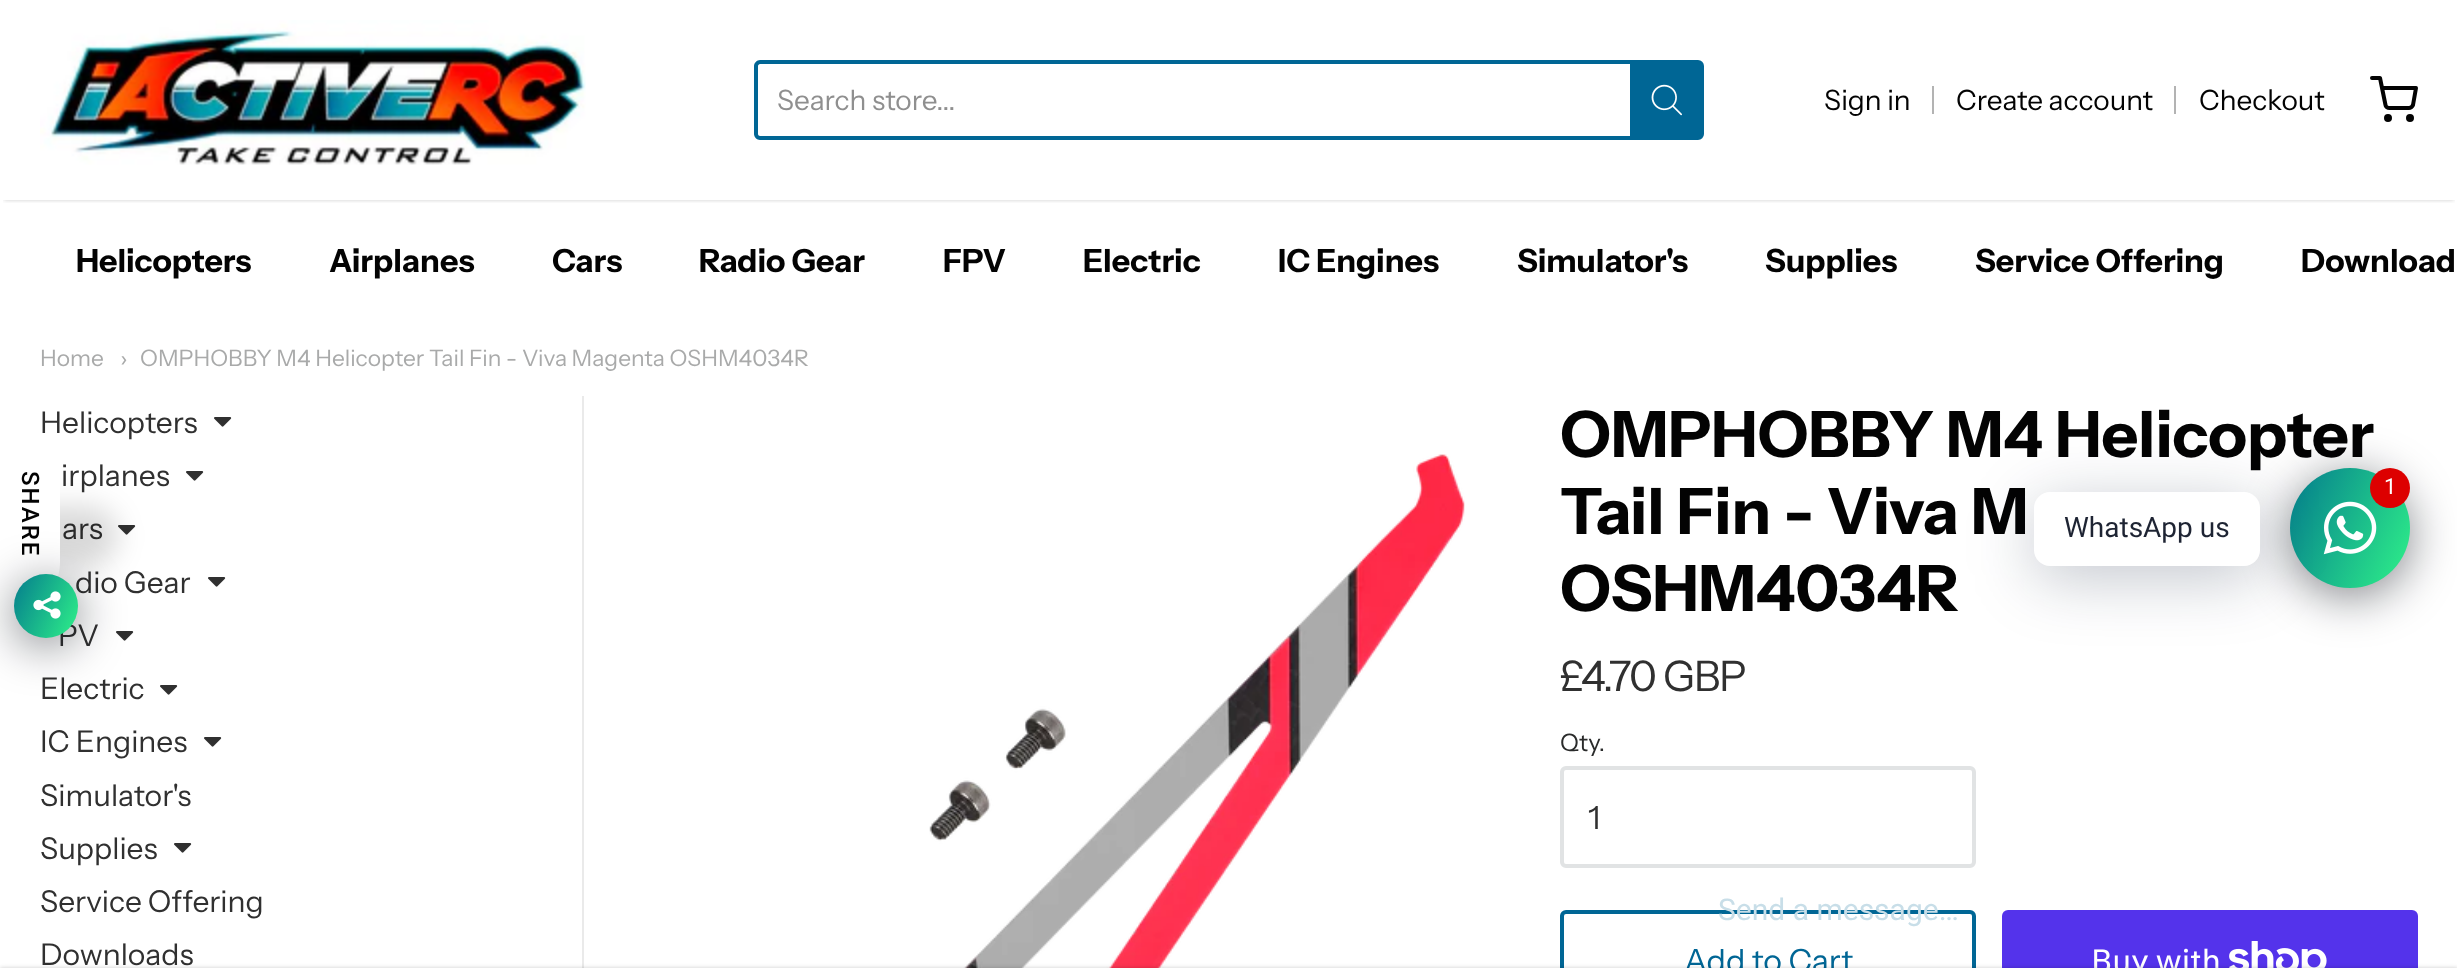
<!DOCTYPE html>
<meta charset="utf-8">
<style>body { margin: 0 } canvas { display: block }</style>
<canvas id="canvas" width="2457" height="968"></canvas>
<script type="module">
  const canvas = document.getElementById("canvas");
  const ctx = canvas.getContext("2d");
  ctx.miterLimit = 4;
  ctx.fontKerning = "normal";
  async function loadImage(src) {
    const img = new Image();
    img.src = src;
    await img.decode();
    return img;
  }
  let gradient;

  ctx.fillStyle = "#ffffff";
  ctx.fillRect(0, 0, 2457, 968);
  ctx.save();
  ctx.beginPath();
  ctx.rect(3, 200, 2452, 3);
  ctx.clip();
  ctx.fillStyle = "rgba(0, 0, 0, 0.2)";
  ctx.filter = "blur(2px)";
  ctx.beginPath();
  ctx.rect(4, 8, 2450, 192);
  ctx.fill();
  ctx.filter = "none";
  ctx.restore();
  ctx.drawImage(await loadImage("img1.png"), 40, 20, 546, 145);
  ctx.fillStyle = "#006695";
  ctx.beginPath();
  ctx.moveTo(760, 60);
  ctx.lineTo(1630, 60);
  ctx.lineTo(1630, 140);
  ctx.lineTo(760, 140);
  ctx.bezierCurveTo(757, 140, 754, 137, 754, 134);
  ctx.lineTo(754, 66);
  ctx.bezierCurveTo(754, 63, 757, 60, 760, 60);
  ctx.closePath();
  ctx.moveTo(760, 64);
  ctx.lineTo(1630, 64);
  ctx.lineTo(1630, 136);
  ctx.lineTo(760, 136);
  ctx.bezierCurveTo(759, 136, 758, 135, 758, 134);
  ctx.lineTo(758, 66);
  ctx.bezierCurveTo(758, 65, 759, 64, 760, 64);
  ctx.closePath();
  ctx.fill("evenodd");
  ctx.font = "28px Instrument Sans";
  ctx.fillStyle = "#8f8f8f";
  ctx.fillText("Search store...", 777, 110);
  ctx.fillStyle = "#006695";
  ctx.beginPath();
  ctx.roundRect(1632, 62, 70, 76, [0, 4, 4, 0]);
  ctx.fill();
  ctx.strokeStyle = "#006695";
  ctx.lineWidth = 4;
  ctx.stroke();
  ctx.drawImage(await loadImage("img2.png"), 1651, 84, 31, 32);
  ctx.fillStyle = "#030303";
  ctx.fillText("Sign in", 1824, 110);
  ctx.fillStyle = "#b3b3b3";
  ctx.fillRect(1932, 86, 2, 28);
  ctx.fillStyle = "#030303";
  ctx.fillText("Create account", 1956, 110);
  ctx.fillStyle = "#b3b3b3";
  ctx.fillRect(2174, 86, 2, 28);
  ctx.fillStyle = "#030303";
  ctx.fillText("Checkout", 2199, 110);
  ctx.beginPath();
  ctx.moveTo(2372, 78);
  ctx.lineTo(2380, 78);
  ctx.lineTo(2385.5, 105);
  ctx.bezierCurveTo(2385.5, 106.5, 2387.5, 108, 2389.5, 108);
  ctx.lineTo(2409, 108);
  ctx.bezierCurveTo(2410.5, 108, 2412.5, 106.5, 2413, 105);
  ctx.lineTo(2416, 88);
  ctx.lineTo(2382, 88);
  ctx.strokeStyle = "#030303";
  ctx.lineCap = "round";
  ctx.lineJoin = "round";
  ctx.stroke();
  ctx.beginPath();
  ctx.arc(2388, 118, 2, 0, Math.PI * 2);
  ctx.stroke();
  ctx.beginPath();
  ctx.arc(2410, 118, 2, 0, Math.PI * 2);
  ctx.stroke();
  ctx.font = "bold 32px Instrument Sans";
  ctx.fillText("Helicopters", 76, 272);
  ctx.fillText("Airplanes", 329, 272);
  ctx.fillText("Cars", 552, 272);
  ctx.fillText("Radio Gear", 699, 272);
  ctx.fillText("FPV", 943, 272);
  ctx.fillText("Electric", 1083, 272);
  ctx.fillText("IC Engines", 1278, 272);
  ctx.fillText("Simulator's", 1517, 272);
  ctx.fillText("Supplies", 1765, 272);
  ctx.fillText("Service Offering", 1975, 272);
  ctx.fillText("Download", 2301, 272);
  ctx.font = "22.75px Instrument Sans";
  ctx.fillStyle = "#a9aaaa";
  ctx.fillText("Home", 40, 366);
  ctx.fillText("›", 120, 366);
  ctx.fillText("OMPHOBBY M4 Helicopter Tail Fin - Viva Magenta OSHM4034R", 140, 366);
  ctx.fillStyle = "#eaeaea";
  ctx.fillRect(582, 396, 2, 572);
  ctx.font = "30px Instrument Sans";
  ctx.fillStyle = "#303030";
  ctx.fillText("Helicopters", 40, 433);
  ctx.drawImage(await loadImage("img3.png"), 214, 417, 18, 10);
  ctx.fillText("irplanes", 61, 486);
  ctx.drawImage(await loadImage("img3.png"), 186, 471, 18, 10);
  ctx.fillText("ars", 62, 539);
  ctx.drawImage(await loadImage("img3.png"), 118, 525, 18, 10);
  ctx.fillText("dio Gear", 75, 593);
  ctx.drawImage(await loadImage("img3.png"), 208, 577, 18, 10);
  ctx.fillText("PV", 58, 646);
  ctx.drawImage(await loadImage("img3.png"), 116, 631, 18, 10);
  ctx.fillText("Electric", 40, 699);
  ctx.drawImage(await loadImage("img3.png"), 160, 685, 18, 10);
  ctx.fillText("IC Engines", 40, 752);
  ctx.drawImage(await loadImage("img3.png"), 204, 737, 18, 10);
  ctx.fillText("Simulator's", 40, 806);
  ctx.fillText("Supplies", 40, 859);
  ctx.drawImage(await loadImage("img3.png"), 174, 843, 18, 10);
  ctx.fillText("Service Offering", 40, 912);
  ctx.fillText("Downloads", 40, 965);
  ctx.drawImage(await loadImage("img4.png"), 929, 454, 536, 514);
  ctx.font = "bold 64px Instrument Sans";
  ctx.fillStyle = "#030303";
  ctx.fillText("OMPHOBBY M4 Helicopter", 1560, 457);
  ctx.fillText("Tail Fin - Viva M", 1560, 534);
  ctx.fillText("OSHM4034R", 1560, 611);
  ctx.letterSpacing = "-1.25px";
  ctx.font = "42px Instrument Sans";
  ctx.fillStyle = "#303030";
  ctx.fillText("£4.70 GBP", 1560, 691);
  ctx.letterSpacing = "0px";
  ctx.font = "24px Instrument Sans";
  ctx.fillStyle = "#2a2b2b";
  ctx.fillText("Qty.", 1560, 751);
  ctx.beginPath();
  ctx.roundRect(1562, 768, 412, 98, 4);
  ctx.strokeStyle = "#e1e3e4";
  ctx.lineJoin = "miter";
  ctx.stroke();
  ctx.font = "32px Instrument Sans";
  ctx.fillStyle = "#303030";
  ctx.fillText("1", 1588, 829);
  ctx.beginPath();
  ctx.roundRect(1562, 912, 412, 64, 4);
  ctx.strokeStyle = "#006695";
  ctx.stroke();
  ctx.fillStyle = "#006695";
  ctx.fillText("Add to Cart", 1684, 972);
  ctx.fillStyle = "#5433eb";
  ctx.beginPath();
  ctx.roundRect(2002, 910, 416, 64, 6);
  ctx.fill();
  ctx.font = "32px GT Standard";
  ctx.fillStyle = "#ffffff";
  ctx.fillText("Buy with", 2091, 972);
  ctx.drawImage(await loadImage("img5.png"), 2229, 941, 98, 27);
  ctx.fillStyle = "rgba(0, 0, 0, 0.2)";
  ctx.filter = "blur(2px)";
  ctx.beginPath();
  ctx.rect(0, 968, 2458, 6);
  ctx.fill();
  ctx.filter = "none";
  ctx.fillStyle = "rgba(0, 0, 0, 0.15)";
  ctx.filter = "blur(14px)";
  ctx.beginPath();
  ctx.roundRect(-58, 506, 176, 60, 56);
  ctx.fill();
  ctx.filter = "none";
  ctx.fillStyle = "#ffffff";
  ctx.beginPath();
  ctx.moveTo(0, 618);
  ctx.lineTo(0, 441);
  ctx.lineTo(52, 441);
  ctx.bezierCurveTo(56, 441, 60, 445, 60, 449);
  ctx.lineTo(60, 562);
  ctx.bezierCurveTo(60, 593, 35, 618, 4, 618);
  ctx.closePath();
  ctx.fill();
  ctx.letterSpacing = "2px";
  ctx.font = "500 24px Roboto";
  ctx.fillStyle = "#030303";
  ctx.save();
  ctx.translate(22, 471);
  ctx.rotate(90 * Math.PI / 180);
  ctx.fillText("SHARE", 0, 0);
  ctx.restore();
  ctx.fillStyle = "rgba(2, 6, 16, 0.5)";
  ctx.filter = "blur(24px)";
  ctx.beginPath();
  ctx.roundRect(14, 582, 64, 64, 32);
  ctx.fill();
  ctx.filter = "none";
  gradient = ctx.createLinearGradient(7.5, 588, 85, 624);
  gradient.addColorStop(0, "#047c8d");
  gradient.addColorStop(1, "#2ff289");
  ctx.fillStyle = gradient;
  ctx.beginPath();
  ctx.arc(46, 606, 32, 0, Math.PI * 2);
  ctx.fill();
  ctx.drawImage(await loadImage("img6.png"), 33, 591, 28, 28);
  ctx.fillStyle = "rgba(2, 6, 16, 0.5)";
  ctx.filter = "blur(24px)";
  ctx.beginPath();
  ctx.roundRect(2290, 476, 120, 120, 60);
  ctx.fill();
  ctx.filter = "none";
  gradient = ctx.createLinearGradient(2278, 494, 2422, 562);
  gradient.addColorStop(0, "#047c8d");
  gradient.addColorStop(1, "#2ff289");
  ctx.fillStyle = gradient;
  ctx.beginPath();
  ctx.arc(2350, 528, 60, 0, Math.PI * 2);
  ctx.fill();
  ctx.fillStyle = "rgba(0, 18, 46, 0.24)";
  ctx.filter = "blur(32px)";
  ctx.beginPath();
  ctx.roundRect(2034, 504, 226, 74, 16);
  ctx.fill();
  ctx.filter = "none";
  ctx.drawImage(await loadImage("img7.png"), 2323, 501, 54, 54);
  ctx.fillStyle = "#dd0000";
  ctx.beginPath();
  ctx.arc(2390, 488, 20, 0, Math.PI * 2);
  ctx.fill();
  ctx.letterSpacing = "0px";
  ctx.font = "22px Roboto";
  ctx.fillStyle = "#ffffff";
  ctx.fillText("1", 2384, 494);
  ctx.beginPath();
  ctx.roundRect(2034, 492, 226, 74, 16);
  ctx.fill();
  ctx.font = "28px Roboto";
  ctx.fillStyle = "#1e2433";
  ctx.fillText("WhatsApp us", 2064, 537);
  ctx.font = "30px Roboto";
  ctx.fillStyle = "#c8dee8";
  ctx.fillText("Send a message…", 1718, 920);
</script>
